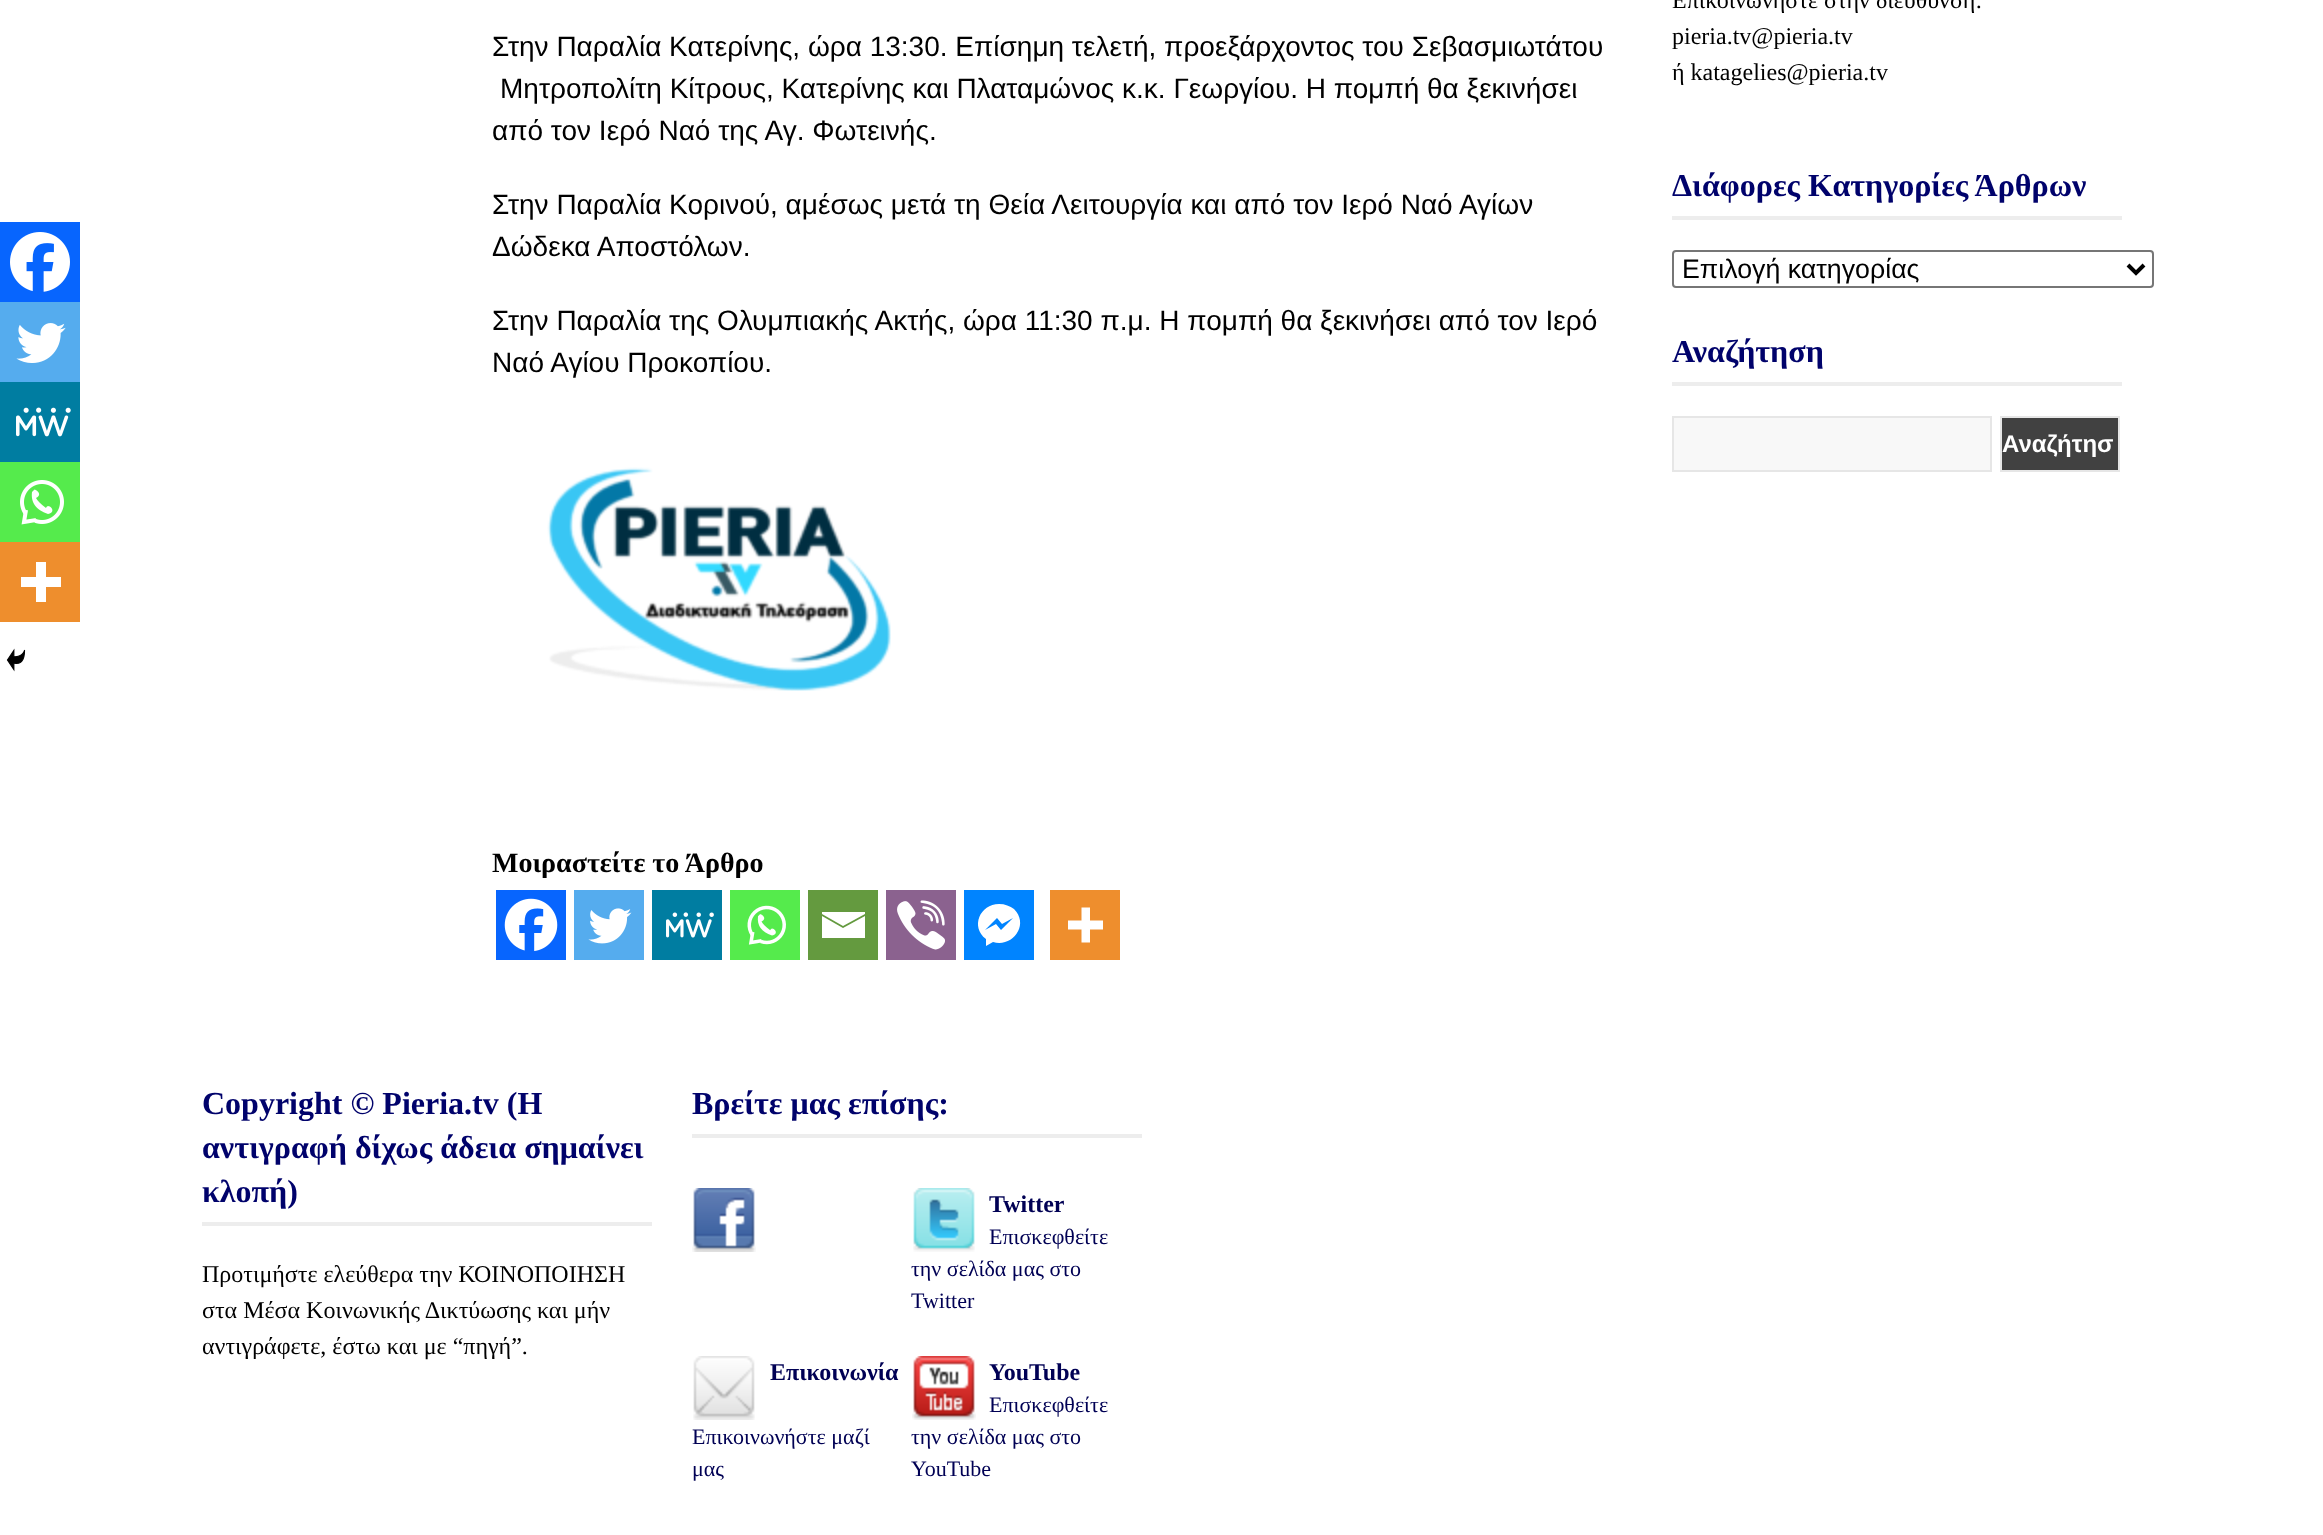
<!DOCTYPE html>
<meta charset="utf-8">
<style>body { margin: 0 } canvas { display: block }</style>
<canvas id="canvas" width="2323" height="1535"></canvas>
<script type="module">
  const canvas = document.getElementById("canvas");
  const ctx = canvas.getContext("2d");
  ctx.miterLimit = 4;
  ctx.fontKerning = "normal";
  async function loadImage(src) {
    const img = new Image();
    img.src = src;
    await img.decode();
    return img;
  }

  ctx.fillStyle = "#ffffff";
  ctx.fillRect(0, 0, 2323, 1535);
  ctx.font = "28px Liberation Sans";
  ctx.fillStyle = "#000000";
  ctx.fillText("Στην Παραλία Κατερίνης, ώρα 13:30. Επίσημη τελετή, προεξάρχοντος του Σεβασμιωτάτου", 492, 56);
  ctx.fillText("Μητροπολίτη Κίτρους, Κατερίνης και Πλαταμώνος κ.κ. Γεωργίου. Η πομπή θα ξεκινήσει", 500, 98);
  ctx.fillText("από τον Ιερό Ναό της Αγ. Φωτεινής.", 492, 140);
  ctx.fillStyle = "#0765fe";
  ctx.fillRect(0, 222, 80, 80);
  ctx.drawImage(await loadImage("img1.png"), 10, 232, 60, 60);
  ctx.fillStyle = "#55acee";
  ctx.fillRect(0, 302, 80, 80);
  ctx.drawImage(await loadImage("img2.png"), 16, 323, 50, 40);
  ctx.fillStyle = "#007da1";
  ctx.fillRect(0, 382, 80, 80);
  ctx.drawImage(await loadImage("img3.png"), 16, 407, 55, 30);
  ctx.fillStyle = "#55eb4c";
  ctx.fillRect(0, 462, 80, 80);
  ctx.drawImage(await loadImage("img4.png"), 20, 480, 44, 45);
  ctx.fillStyle = "#ee8e2d";
  ctx.fillRect(0, 542, 80, 80);
  ctx.fillStyle = "#ffffff";
  ctx.beginPath();
  ctx.moveTo(46, 577);
  ctx.lineTo(46, 562);
  ctx.lineTo(36, 562);
  ctx.lineTo(36, 577);
  ctx.lineTo(21, 577);
  ctx.lineTo(21, 587);
  ctx.lineTo(36, 587);
  ctx.lineTo(36, 602);
  ctx.lineTo(46, 602);
  ctx.lineTo(46, 587);
  ctx.lineTo(61, 587);
  ctx.lineTo(61, 577);
  ctx.closePath();
  ctx.fill("evenodd");
  ctx.drawImage(await loadImage("img5.png"), 6, 648, 20, 24);
  ctx.fillStyle = "#000000";
  ctx.fillText("Στην Παραλία Κορινού, αμέσως μετά τη Θεία Λειτουργία και από τον Ιερό Ναό Αγίων", 492, 214);
  ctx.fillText("Δώδεκα Αποστόλων.", 492, 256);
  ctx.fillText("Στην Παραλία της Ολυμπιακής Ακτής, ώρα 11:30 π.μ. Η πομπή θα ξεκινήσει από τον Ιερό", 492, 330);
  ctx.fillText("Ναό Αγίου Προκοπίου.", 492, 372);
  ctx.drawImage(await loadImage("img6.png"), 547, 467, 344, 224);
  ctx.font = "bold 28px Liberation Serif";
  ctx.fillText("Μοιραστείτε το Άρθρο", 492, 872);
  ctx.fillStyle = "#0765fe";
  ctx.fillRect(496, 890, 70, 70);
  ctx.drawImage(await loadImage("img7.png"), 504, 898, 54, 53);
  ctx.fillStyle = "#55acee";
  ctx.fillRect(574, 890, 70, 70);
  ctx.drawImage(await loadImage("img8.png"), 588, 908, 44, 36);
  ctx.fillStyle = "#007da1";
  ctx.fillRect(652, 890, 70, 70);
  ctx.drawImage(await loadImage("img9.png"), 666, 912, 48, 26);
  ctx.fillStyle = "#55eb4c";
  ctx.fillRect(730, 890, 70, 70);
  ctx.drawImage(await loadImage("img10.png"), 747, 905, 39, 40);
  ctx.fillStyle = "#649a3f";
  ctx.fillRect(808, 890, 70, 70);
  ctx.fillStyle = "#ffffff";
  ctx.beginPath();
  ctx.moveTo(820, 912);
  ctx.lineTo(865, 912);
  ctx.lineTo(865, 914);
  ctx.lineTo(843, 926);
  ctx.lineTo(822, 914);
  ctx.lineTo(822, 912);
  ctx.moveTo(822, 916);
  ctx.lineTo(843, 928);
  ctx.lineTo(865, 916);
  ctx.lineTo(865, 938);
  ctx.lineTo(822, 938);
  ctx.lineTo(822, 916);
  ctx.fill();
  ctx.fillStyle = "#8b628f";
  ctx.fillRect(886, 890, 70, 70);
  ctx.drawImage(await loadImage("img11.png"), 897, 900, 48, 50);
  ctx.fillStyle = "#0084ff";
  ctx.fillRect(964, 890, 70, 70);
  ctx.fillStyle = "#ffffff";
  ctx.beginPath();
  ctx.moveTo(999, 904);
  ctx.bezierCurveTo(980, 904, 970, 927, 986, 939);
  ctx.lineTo(986, 946);
  ctx.lineTo(993, 942);
  ctx.bezierCurveTo(1012, 948, 1030, 925, 1014, 909);
  ctx.bezierCurveTo(1010, 906, 1005, 904, 999, 904);
  ctx.closePath();
  ctx.moveTo(1001, 930);
  ctx.lineTo(996, 924);
  ctx.lineTo(985, 930);
  ctx.lineTo(997, 918);
  ctx.lineTo(1002, 924);
  ctx.lineTo(1013, 918);
  ctx.closePath();
  ctx.fill();
  ctx.fillStyle = "#ee8e2d";
  ctx.fillRect(1050, 890, 70, 70);
  ctx.fillStyle = "#ffffff";
  ctx.beginPath();
  ctx.moveTo(1090, 920.5);
  ctx.lineTo(1090, 907.5);
  ctx.lineTo(1081.5, 907.5);
  ctx.lineTo(1081.5, 920.5);
  ctx.lineTo(1068, 920.5);
  ctx.lineTo(1068, 929.5);
  ctx.lineTo(1081.5, 929.5);
  ctx.lineTo(1081.5, 942.5);
  ctx.lineTo(1090, 942.5);
  ctx.lineTo(1090, 929.5);
  ctx.lineTo(1103, 929.5);
  ctx.lineTo(1103, 920.5);
  ctx.closePath();
  ctx.fill("evenodd");
  ctx.font = "24px Liberation Serif";
  ctx.fillStyle = "#000000";
  ctx.fillText("Επικοινωνήστε στην διεύθυνση:", 1672, 8);
  ctx.fillText("pieria.tv@pieria.tv", 1672, 44);
  ctx.fillText("ή katagelies@pieria.tv", 1672, 80);
  ctx.fillStyle = "#ededed";
  ctx.fillRect(1672, 216, 450, 4);
  ctx.font = "bold 32px Liberation Serif";
  ctx.fillStyle = "#00026b";
  ctx.fillText("Διάφορες Κατηγορίες Άρθρων", 1672, 196);
  ctx.beginPath();
  ctx.roundRect(1673, 251, 480, 36, 3);
  ctx.strokeStyle = "#767676";
  ctx.lineWidth = 2;
  ctx.stroke();
  ctx.beginPath();
  ctx.moveTo(2128, 265);
  ctx.lineTo(2136, 273);
  ctx.lineTo(2144, 265);
  ctx.strokeStyle = "#000000";
  ctx.lineWidth = 4;
  ctx.stroke();
  ctx.font = "26.75px Liberation Sans";
  ctx.fillStyle = "#000000";
  ctx.fillText("Επιλογή κατηγορίας", 1682, 278);
  ctx.fillStyle = "#ededed";
  ctx.fillRect(1672, 382, 450, 4);
  ctx.font = "bold 32px Liberation Serif";
  ctx.fillStyle = "#00026b";
  ctx.fillText("Αναζήτηση", 1672, 362);
  ctx.fillStyle = "#f8f8f8";
  ctx.beginPath();
  ctx.rect(1673, 417, 318, 54);
  ctx.fill();
  ctx.strokeStyle = "#e6e6e6";
  ctx.lineWidth = 2;
  ctx.stroke();
  ctx.fillStyle = "#414141";
  ctx.beginPath();
  ctx.rect(2001, 417, 118, 54);
  ctx.fill();
  ctx.stroke();
  ctx.font = "bold 24px Liberation Sans";
  ctx.fillStyle = "#ffffff";
  ctx.fillText("Αναζήτησ", 2002, 452);
  ctx.fillStyle = "#ededed";
  ctx.fillRect(202, 1222, 450, 4);
  ctx.font = "bold 32px Liberation Serif";
  ctx.fillStyle = "#00026b";
  ctx.fillText("Copyright © Pieria.tv (Η", 202, 1114);
  ctx.fillText("αντιγραφή δίχως άδεια σημαίνει", 202, 1158);
  ctx.fillText("κλοπή)", 202, 1202);
  ctx.font = "24px Liberation Serif";
  ctx.fillStyle = "#000000";
  ctx.fillText("Προτιμήστε ελεύθερα την ΚΟΙΝΟΠΟΙΗΣΗ", 202, 1282);
  ctx.fillText("στα Μέσα Κοινωνικής Δικτύωσης και μήν", 202, 1318);
  ctx.fillText("αντιγράφετε, έστω και με “πηγή”.", 202, 1354);
  ctx.fillStyle = "#ededed";
  ctx.fillRect(692, 1134, 450, 4);
  ctx.font = "bold 32px Liberation Serif";
  ctx.fillStyle = "#00026b";
  ctx.fillText("Βρείτε μας επίσης:", 692, 1114);
  ctx.drawImage(await loadImage("img12.png"), 692, 1188, 64, 64);
  ctx.drawImage(await loadImage("img13.png"), 913, 1188, 62, 64);
  ctx.font = "bold 24px Liberation Serif";
  ctx.fillStyle = "#000054";
  ctx.fillText("Twitter", 989, 1212);
  ctx.font = "22px Liberation Serif";
  ctx.fillText("Επισκεφθείτε", 989, 1244);
  ctx.fillText("την σελίδα μας στο", 911, 1276);
  ctx.fillText("Twitter", 911, 1308);
  ctx.drawImage(await loadImage("img14.png"), 693, 1356, 62, 64);
  ctx.font = "bold 24px Liberation Serif";
  ctx.fillText("Επικοινωνία", 770, 1380);
  ctx.font = "22px Liberation Serif";
  ctx.fillText("Επικοινωνήστε μαζί", 692, 1444);
  ctx.fillText("μας", 692, 1476);
  ctx.drawImage(await loadImage("img15.png"), 912, 1356, 64, 64);
  ctx.font = "bold 24px Liberation Serif";
  ctx.fillText("YouTube", 989, 1380);
  ctx.font = "22px Liberation Serif";
  ctx.fillText("Επισκεφθείτε", 989, 1412);
  ctx.fillText("την σελίδα μας στο", 911, 1444);
  ctx.fillText("YouTube", 911, 1476);
</script>
